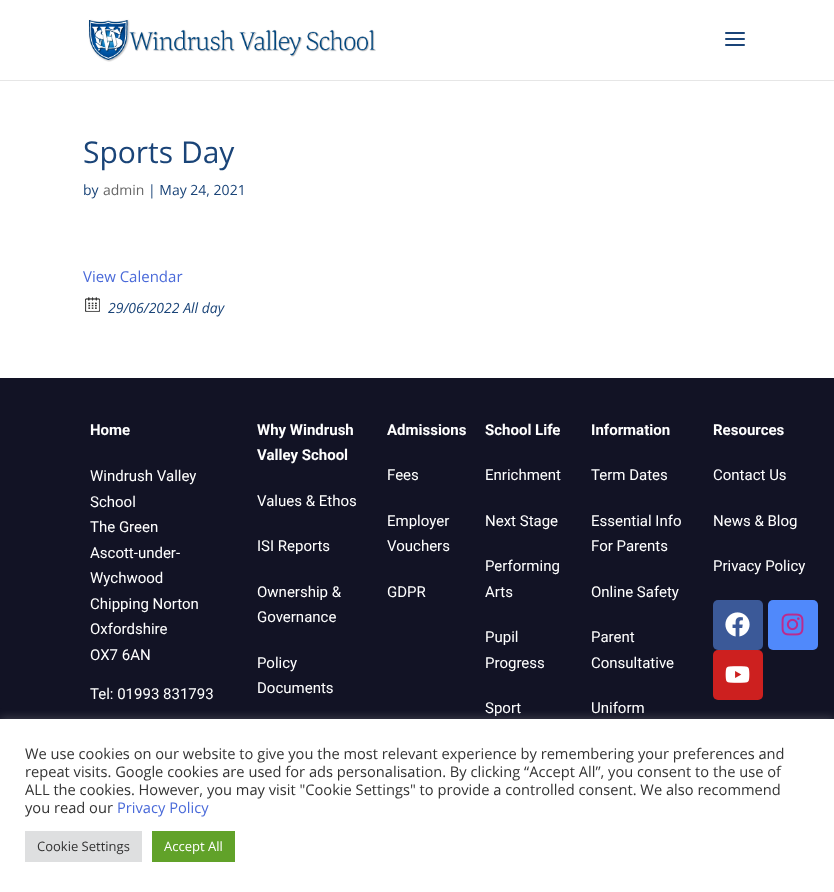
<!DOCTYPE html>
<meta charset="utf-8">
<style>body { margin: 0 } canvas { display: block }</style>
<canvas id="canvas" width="834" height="892"></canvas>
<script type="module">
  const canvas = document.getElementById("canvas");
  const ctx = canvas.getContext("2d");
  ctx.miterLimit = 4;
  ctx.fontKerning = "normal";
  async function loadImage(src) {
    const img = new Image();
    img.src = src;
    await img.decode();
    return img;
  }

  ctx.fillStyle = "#ffffff";
  ctx.fillRect(0, 0, 834, 892);
  ctx.fillStyle = "#e6e6e6";
  ctx.fillRect(0, 80, 834, 1);
  ctx.drawImage(await loadImage("img1.png"), 88, 19, 288, 43);
  ctx.drawImage(await loadImage("img2.png"), 725, 32, 20, 14);
  ctx.font = "30px Open Sans";
  ctx.fillStyle = "#1a4478";
  ctx.fillText("Sports Day", 83, 163);
  ctx.font = "14px Open Sans";
  ctx.fillText("by", 83, 195);
  ctx.fillStyle = "#666666";
  ctx.fillText("admin", 103, 195);
  ctx.fillStyle = "#1a4478";
  ctx.fillText("| May 24, 2021", 148, 195);
  ctx.font = "15px Open Sans";
  ctx.fillStyle = "#4a6ad9";
  ctx.fillText("View Calendar", 83, 282);
  ctx.drawImage(await loadImage("img3.png"), 85, 297, 15, 15);
  ctx.font = "italic 14px Open Sans";
  ctx.fillStyle = "#1a4478";
  ctx.fillText("29/06/2022 All day", 108, 313);
  ctx.fillStyle = "#121325";
  ctx.fillRect(0, 378, 834, 341);
  ctx.font = "bold 15px Roboto";
  ctx.fillStyle = "#ffffff";
  ctx.fillText("Home", 90, 435);
  ctx.font = "15px Roboto";
  ctx.fillText("Windrush Valley", 90, 481);
  ctx.fillText("School", 90, 507);
  ctx.fillText("The Green", 90, 532);
  ctx.fillText("Ascott-under-", 90, 558);
  ctx.fillText("Wychwood", 90, 583);
  ctx.fillText("Chipping Norton", 90, 609);
  ctx.fillText("Oxfordshire", 90, 634);
  ctx.fillText("OX7 6AN", 90, 660);
  ctx.fillText("Tel: 01993 831793", 90, 699);
  ctx.font = "bold 15px Roboto";
  ctx.fillText("Why Windrush", 257, 435);
  ctx.fillText("Valley School", 257, 460);
  ctx.font = "15px Roboto";
  ctx.fillText("Values & Ethos", 257, 506);
  ctx.fillText("ISI Reports", 257, 551);
  ctx.fillText("Ownership &", 257, 597);
  ctx.fillText("Governance", 257, 622);
  ctx.fillText("Policy", 257, 668);
  ctx.fillText("Documents", 257, 693);
  ctx.font = "bold 15px Roboto";
  ctx.fillText("Admissions", 387, 435);
  ctx.font = "15px Roboto";
  ctx.fillText("Fees", 387, 480);
  ctx.fillText("Employer", 387, 526);
  ctx.fillText("Vouchers", 387, 551);
  ctx.fillText("GDPR", 387, 597);
  ctx.font = "bold 15px Roboto";
  ctx.fillText("School Life", 485, 435);
  ctx.font = "15px Roboto";
  ctx.fillText("Enrichment", 485, 480);
  ctx.fillText("Next Stage", 485, 526);
  ctx.fillText("Performing", 485, 571);
  ctx.fillText("Arts", 485, 597);
  ctx.fillText("Pupil", 485, 642);
  ctx.fillText("Progress", 485, 668);
  ctx.fillText("Sport", 485, 713);
  ctx.font = "bold 15px Roboto";
  ctx.fillText("Information", 591, 435);
  ctx.font = "15px Roboto";
  ctx.fillText("Term Dates", 591, 480);
  ctx.fillText("Essential Info", 591, 526);
  ctx.fillText("For Parents", 591, 551);
  ctx.fillText("Online Safety", 591, 597);
  ctx.fillText("Parent", 591, 642);
  ctx.fillText("Consultative", 591, 668);
  ctx.fillText("Uniform", 591, 713);
  ctx.font = "bold 15px Roboto";
  ctx.fillText("Resources", 713, 435);
  ctx.font = "15px Roboto";
  ctx.fillText("Contact Us", 713, 480);
  ctx.fillText("News & Blog", 713, 526);
  ctx.fillText("Privacy Policy", 713, 571);
  ctx.fillStyle = "#3b5998";
  ctx.beginPath();
  ctx.roundRect(713, 600, 50, 50, 5);
  ctx.fill();
  ctx.drawImage(await loadImage("img4.png"), 725, 612, 25, 25);
  ctx.fillStyle = "#5089fb";
  ctx.beginPath();
  ctx.roundRect(768, 600, 50, 50, 5);
  ctx.fill();
  ctx.drawImage(await loadImage("img5.png"), 781, 613, 23, 23);
  ctx.fillStyle = "#cd201f";
  ctx.beginPath();
  ctx.roundRect(713, 650, 50, 50, 5);
  ctx.fill();
  ctx.drawImage(await loadImage("img6.png"), 725, 666, 25, 17);
  ctx.fillStyle = "rgba(172, 171, 171, 0.3)";
  ctx.filter = "blur(5px)";
  ctx.beginPath();
  ctx.rect(0, 718, 834, 173);
  ctx.fill();
  ctx.filter = "none";
  ctx.fillStyle = "#ffffff";
  ctx.fillRect(0, 719, 834, 173);
  ctx.font = "14.67px Open Sans";
  ctx.fillStyle = "#333333";
  ctx.fillText("We use cookies on our website to give you the most relevant experience by remembering your preferences and", 25, 759);
  ctx.fillText("repeat visits. Google cookies are used for ads personalisation. By clicking “Accept All”, you consent to the use of", 25, 777);
  ctx.fillText("ALL the cookies. However, you may visit \"Cookie Settings\" to provide a controlled consent. We also recommend", 25, 795);
  ctx.fillText("you read our", 25, 813);
  ctx.fillStyle = "#4a6ad9";
  ctx.fillText("Privacy Policy", 117, 813);
  ctx.fillStyle = "#dedfe0";
  ctx.fillRect(25, 831, 117, 31);
  ctx.font = "13px Open Sans";
  ctx.fillStyle = "#333333";
  ctx.fillText("Cookie Settings", 37, 851);
  ctx.fillStyle = "#61a229";
  ctx.fillRect(152, 831, 83, 31);
  ctx.fillStyle = "#ffffff";
  ctx.fillText("Accept All", 164, 851);
</script>
